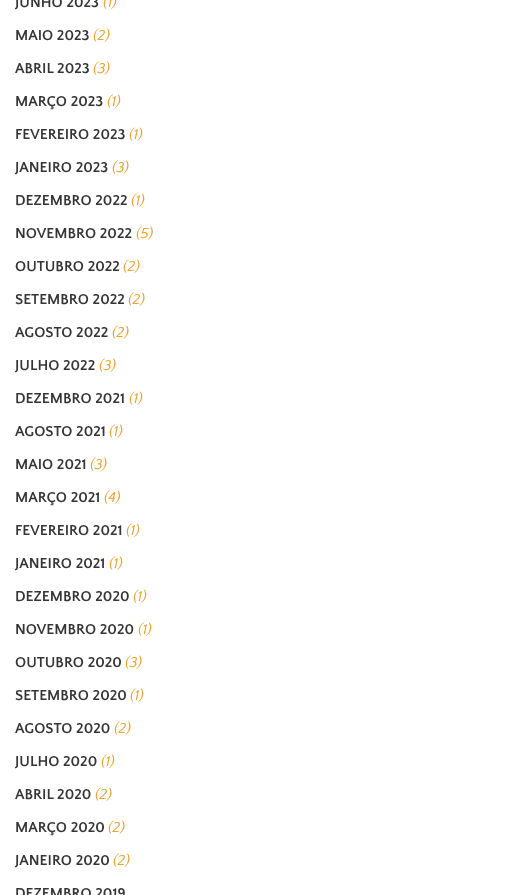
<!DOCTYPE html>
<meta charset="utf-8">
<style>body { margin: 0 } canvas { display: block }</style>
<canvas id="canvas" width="528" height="895"></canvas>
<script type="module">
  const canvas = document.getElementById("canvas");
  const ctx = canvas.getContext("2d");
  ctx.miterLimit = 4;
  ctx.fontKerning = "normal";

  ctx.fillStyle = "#ffffff";
  ctx.fillRect(0, 0, 528, 895);
  ctx.font = "bold 15px Quattrocento Sans";
  ctx.fillStyle = "#353535";
  ctx.fillText("JUNHO 2023", 15, 7);
  ctx.font = "italic 15px Quattrocento Sans";
  ctx.fillStyle = "#eaa232";
  ctx.fillText("(1)", 103, 7);
  ctx.font = "bold 15px Quattrocento Sans";
  ctx.fillStyle = "#353535";
  ctx.fillText("MAIO 2023", 15, 40);
  ctx.font = "italic 15px Quattrocento Sans";
  ctx.fillStyle = "#eaa232";
  ctx.fillText("(2)", 93, 40);
  ctx.font = "bold 15px Quattrocento Sans";
  ctx.fillStyle = "#353535";
  ctx.fillText("ABRIL 2023", 15, 73);
  ctx.font = "italic 15px Quattrocento Sans";
  ctx.fillStyle = "#eaa232";
  ctx.fillText("(3)", 93, 73);
  ctx.font = "bold 15px Quattrocento Sans";
  ctx.fillStyle = "#353535";
  ctx.fillText("MARÇO 2023", 15, 106);
  ctx.font = "italic 15px Quattrocento Sans";
  ctx.fillStyle = "#eaa232";
  ctx.fillText("(1)", 107, 106);
  ctx.font = "bold 15px Quattrocento Sans";
  ctx.fillStyle = "#353535";
  ctx.fillText("FEVEREIRO 2023", 15, 139);
  ctx.font = "italic 15px Quattrocento Sans";
  ctx.fillStyle = "#eaa232";
  ctx.fillText("(1)", 129, 139);
  ctx.font = "bold 15px Quattrocento Sans";
  ctx.fillStyle = "#353535";
  ctx.fillText("JANEIRO 2023", 15, 172);
  ctx.font = "italic 15px Quattrocento Sans";
  ctx.fillStyle = "#eaa232";
  ctx.fillText("(3)", 112, 172);
  ctx.font = "bold 15px Quattrocento Sans";
  ctx.fillStyle = "#353535";
  ctx.fillText("DEZEMBRO 2022", 15, 205);
  ctx.font = "italic 15px Quattrocento Sans";
  ctx.fillStyle = "#eaa232";
  ctx.fillText("(1)", 131, 205);
  ctx.font = "bold 15px Quattrocento Sans";
  ctx.fillStyle = "#353535";
  ctx.fillText("NOVEMBRO 2022", 15, 238);
  ctx.font = "italic 15px Quattrocento Sans";
  ctx.fillStyle = "#eaa232";
  ctx.fillText("(5)", 136, 238);
  ctx.font = "bold 15px Quattrocento Sans";
  ctx.fillStyle = "#353535";
  ctx.fillText("OUTUBRO 2022", 15, 271);
  ctx.font = "italic 15px Quattrocento Sans";
  ctx.fillStyle = "#eaa232";
  ctx.fillText("(2)", 123, 271);
  ctx.font = "bold 15px Quattrocento Sans";
  ctx.fillStyle = "#353535";
  ctx.fillText("SETEMBRO 2022", 15, 304);
  ctx.font = "italic 15px Quattrocento Sans";
  ctx.fillStyle = "#eaa232";
  ctx.fillText("(2)", 128, 304);
  ctx.font = "bold 15px Quattrocento Sans";
  ctx.fillStyle = "#353535";
  ctx.fillText("AGOSTO 2022", 15, 337);
  ctx.font = "italic 15px Quattrocento Sans";
  ctx.fillStyle = "#eaa232";
  ctx.fillText("(2)", 112, 337);
  ctx.font = "bold 15px Quattrocento Sans";
  ctx.fillStyle = "#353535";
  ctx.fillText("JULHO 2022", 15, 370);
  ctx.font = "italic 15px Quattrocento Sans";
  ctx.fillStyle = "#eaa232";
  ctx.fillText("(3)", 99, 370);
  ctx.font = "bold 15px Quattrocento Sans";
  ctx.fillStyle = "#353535";
  ctx.fillText("DEZEMBRO 2021", 15, 403);
  ctx.font = "italic 15px Quattrocento Sans";
  ctx.fillStyle = "#eaa232";
  ctx.fillText("(1)", 129, 403);
  ctx.font = "bold 15px Quattrocento Sans";
  ctx.fillStyle = "#353535";
  ctx.fillText("AGOSTO 2021", 15, 436);
  ctx.font = "italic 15px Quattrocento Sans";
  ctx.fillStyle = "#eaa232";
  ctx.fillText("(1)", 109, 436);
  ctx.font = "bold 15px Quattrocento Sans";
  ctx.fillStyle = "#353535";
  ctx.fillText("MAIO 2021", 15, 469);
  ctx.font = "italic 15px Quattrocento Sans";
  ctx.fillStyle = "#eaa232";
  ctx.fillText("(3)", 90, 469);
  ctx.font = "bold 15px Quattrocento Sans";
  ctx.fillStyle = "#353535";
  ctx.fillText("MARÇO 2021", 15, 502);
  ctx.font = "italic 15px Quattrocento Sans";
  ctx.fillStyle = "#eaa232";
  ctx.fillText("(4)", 104, 502);
  ctx.font = "bold 15px Quattrocento Sans";
  ctx.fillStyle = "#353535";
  ctx.fillText("FEVEREIRO 2021", 15, 535);
  ctx.font = "italic 15px Quattrocento Sans";
  ctx.fillStyle = "#eaa232";
  ctx.fillText("(1)", 126, 535);
  ctx.font = "bold 15px Quattrocento Sans";
  ctx.fillStyle = "#353535";
  ctx.fillText("JANEIRO 2021", 15, 568);
  ctx.font = "italic 15px Quattrocento Sans";
  ctx.fillStyle = "#eaa232";
  ctx.fillText("(1)", 109, 568);
  ctx.font = "bold 15px Quattrocento Sans";
  ctx.fillStyle = "#353535";
  ctx.fillText("DEZEMBRO 2020", 15, 601);
  ctx.font = "italic 15px Quattrocento Sans";
  ctx.fillStyle = "#eaa232";
  ctx.fillText("(1)", 133, 601);
  ctx.font = "bold 15px Quattrocento Sans";
  ctx.fillStyle = "#353535";
  ctx.fillText("NOVEMBRO 2020", 15, 634);
  ctx.font = "italic 15px Quattrocento Sans";
  ctx.fillStyle = "#eaa232";
  ctx.fillText("(1)", 138, 634);
  ctx.font = "bold 15px Quattrocento Sans";
  ctx.fillStyle = "#353535";
  ctx.fillText("OUTUBRO 2020", 15, 667);
  ctx.font = "italic 15px Quattrocento Sans";
  ctx.fillStyle = "#eaa232";
  ctx.fillText("(3)", 125, 667);
  ctx.font = "bold 15px Quattrocento Sans";
  ctx.fillStyle = "#353535";
  ctx.fillText("SETEMBRO 2020", 15, 700);
  ctx.font = "italic 15px Quattrocento Sans";
  ctx.fillStyle = "#eaa232";
  ctx.fillText("(1)", 130, 700);
  ctx.font = "bold 15px Quattrocento Sans";
  ctx.fillStyle = "#353535";
  ctx.fillText("AGOSTO 2020", 15, 733);
  ctx.font = "italic 15px Quattrocento Sans";
  ctx.fillStyle = "#eaa232";
  ctx.fillText("(2)", 114, 733);
  ctx.font = "bold 15px Quattrocento Sans";
  ctx.fillStyle = "#353535";
  ctx.fillText("JULHO 2020", 15, 766);
  ctx.font = "italic 15px Quattrocento Sans";
  ctx.fillStyle = "#eaa232";
  ctx.fillText("(1)", 101, 766);
  ctx.font = "bold 15px Quattrocento Sans";
  ctx.fillStyle = "#353535";
  ctx.fillText("ABRIL 2020", 15, 799);
  ctx.font = "italic 15px Quattrocento Sans";
  ctx.fillStyle = "#eaa232";
  ctx.fillText("(2)", 95, 799);
  ctx.font = "bold 15px Quattrocento Sans";
  ctx.fillStyle = "#353535";
  ctx.fillText("MARÇO 2020", 15, 832);
  ctx.font = "italic 15px Quattrocento Sans";
  ctx.fillStyle = "#eaa232";
  ctx.fillText("(2)", 108, 832);
  ctx.font = "bold 15px Quattrocento Sans";
  ctx.fillStyle = "#353535";
  ctx.fillText("JANEIRO 2020", 15, 865);
  ctx.font = "italic 15px Quattrocento Sans";
  ctx.fillStyle = "#eaa232";
  ctx.fillText("(2)", 113, 865);
  ctx.font = "bold 15px Quattrocento Sans";
  ctx.fillStyle = "#353535";
  ctx.fillText("DEZEMBRO 2019", 15, 898);
</script>
